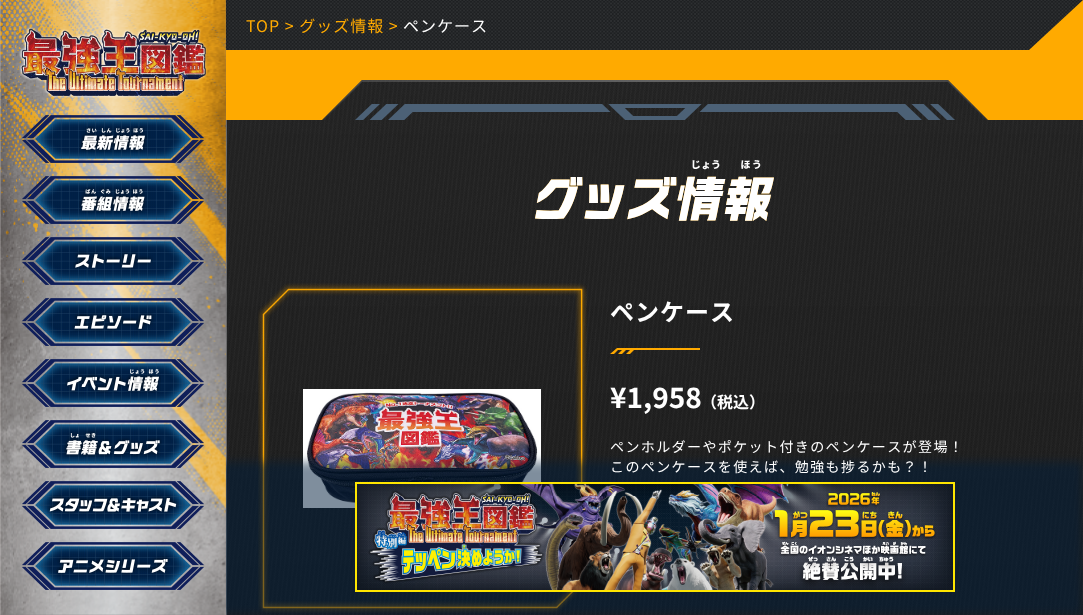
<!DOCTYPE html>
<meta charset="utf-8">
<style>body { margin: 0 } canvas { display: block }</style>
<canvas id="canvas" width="1083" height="615"></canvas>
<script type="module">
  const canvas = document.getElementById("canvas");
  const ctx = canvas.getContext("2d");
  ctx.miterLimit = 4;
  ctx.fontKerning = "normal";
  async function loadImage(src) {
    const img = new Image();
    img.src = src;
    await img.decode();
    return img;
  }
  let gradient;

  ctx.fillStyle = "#ffffff";
  ctx.fillRect(0, 0, 1083, 615);
  ctx.drawImage(await loadImage("img19.png"), 226, 80, 857, 535);
  ctx.drawImage(await loadImage("img23.png"), 258, 283, 329, 330);
  ctx.drawImage(await loadImage("img24.png"), 303, 389, 238, 119);
  ctx.fillStyle = "rgba(0, 30, 60, 0.5)";
  ctx.filter = "blur(5px)";
  ctx.beginPath();
  ctx.rect(0, 462, 1083, 153);
  ctx.fill();
  ctx.filter = "none";
  ctx.fillStyle = "#817c7e";
  ctx.fillRect(0, 0, 226, 615);
  ctx.drawImage(await loadImage("img1.png"), 0, 0, 226, 615);
  ctx.drawImage(await loadImage("img2.png"), 18, 26, 189, 72);
  ctx.drawImage(await loadImage("img3.png"), 22, 115, 182, 48);
  ctx.drawImage(await loadImage("img4.png"), 79, 126, 68, 27);
  ctx.drawImage(await loadImage("img5.png"), 22, 176, 182, 48);
  ctx.drawImage(await loadImage("img6.png"), 79, 187, 68, 27);
  ctx.drawImage(await loadImage("img7.png"), 22, 237, 182, 48);
  ctx.drawImage(await loadImage("img8.png"), 73, 251, 80, 19);
  ctx.drawImage(await loadImage("img9.png"), 22, 298, 182, 48);
  ctx.drawImage(await loadImage("img10.png"), 72, 312, 82, 20);
  ctx.drawImage(await loadImage("img11.png"), 22, 359, 182, 48);
  ctx.drawImage(await loadImage("img12.png"), 65, 369, 96, 24);
  ctx.drawImage(await loadImage("img13.png"), 22, 420, 182, 48);
  ctx.drawImage(await loadImage("img14.png"), 64, 431, 98, 26);
  ctx.drawImage(await loadImage("img15.png"), 22, 481, 182, 48);
  ctx.drawImage(await loadImage("img16.png"), 47, 495, 132, 19);
  ctx.drawImage(await loadImage("img17.png"), 22, 542, 182, 48);
  ctx.drawImage(await loadImage("img18.png"), 56, 556, 114, 20);
  ctx.fillStyle = "#ffaa00";
  ctx.beginPath();
  ctx.moveTo(226, 0);
  ctx.lineTo(226, 120);
  ctx.lineTo(322, 120);
  ctx.lineTo(362, 80);
  ctx.lineTo(948, 80);
  ctx.lineTo(988, 120);
  ctx.lineTo(1083, 120);
  ctx.lineTo(1083, 0);
  ctx.closePath();
  ctx.fill();
  ctx.drawImage(await loadImage("img20.png"), 226, 0, 857, 50);
  ctx.letterSpacing = "1px";
  ctx.font = "16px Noto Sans JP";
  ctx.fillText("TOP > グッズ情報 >", 246, 32);
  ctx.fillStyle = "#ffffff";
  ctx.fillText("ペンケース", 403, 32);
  ctx.drawImage(await loadImage("img21.png"), 355, 104, 600, 16);
  gradient = ctx.createRadialGradient(655, 821.69, 0, 655, 821.69, 606);
  gradient.addColorStop(0, "#646464");
  gradient.addColorStop(1, "rgba(100, 100, 100, 0)");
  ctx.fillStyle = gradient;
  ctx.beginPath();
  ctx.moveTo(362, 80);
  ctx.lineTo(322, 120);
  ctx.lineTo(324, 120);
  ctx.lineTo(362, 82);
  ctx.lineTo(948, 82);
  ctx.lineTo(986, 120);
  ctx.lineTo(988, 120);
  ctx.lineTo(948, 80);
  ctx.closePath();
  ctx.save();
  ctx.clip();
  ctx.scale(1, 59 / 606);
  ctx.fillRect(0, 0, 1083, 6317);
  ctx.restore();
  ctx.drawImage(await loadImage("img22.png"), 535, 160, 239, 61);
  ctx.font = "bold 24px Noto Sans JP";
  ctx.fillStyle = "#ffffff";
  ctx.fillText("ペンケース", 610, 321);
  ctx.fillStyle = "#ffaa00";
  ctx.beginPath();
  ctx.moveTo(617, 348);
  ctx.lineTo(700, 348);
  ctx.lineTo(700, 350);
  ctx.lineTo(634, 350);
  ctx.lineTo(630, 354);
  ctx.lineTo(626, 354);
  ctx.lineTo(630, 350);
  ctx.lineTo(626, 350);
  ctx.lineTo(622, 354);
  ctx.lineTo(618, 354);
  ctx.lineTo(622, 350);
  ctx.lineTo(618, 350);
  ctx.lineTo(614, 354);
  ctx.lineTo(610, 354);
  ctx.closePath();
  ctx.fill();
  ctx.letterSpacing = "0px";
  ctx.font = "bold 28px Noto Sans JP";
  ctx.fillStyle = "#ffffff";
  ctx.fillText("¥1,958", 610, 408);
  ctx.font = "bold 16px Noto Sans JP";
  ctx.fillText("（税込）", 701, 408);
  ctx.letterSpacing = "1.4px";
  ctx.font = "14px Noto Sans JP";
  ctx.fillText("ペンホルダーやポケット付きのペンケースが登場！", 610, 452);
  ctx.fillText("このペンケースを使えば、勉強も捗るかも？！", 610, 472);
  ctx.drawImage(await loadImage("img25.png"), 355, 482, 600, 110);
</script>
